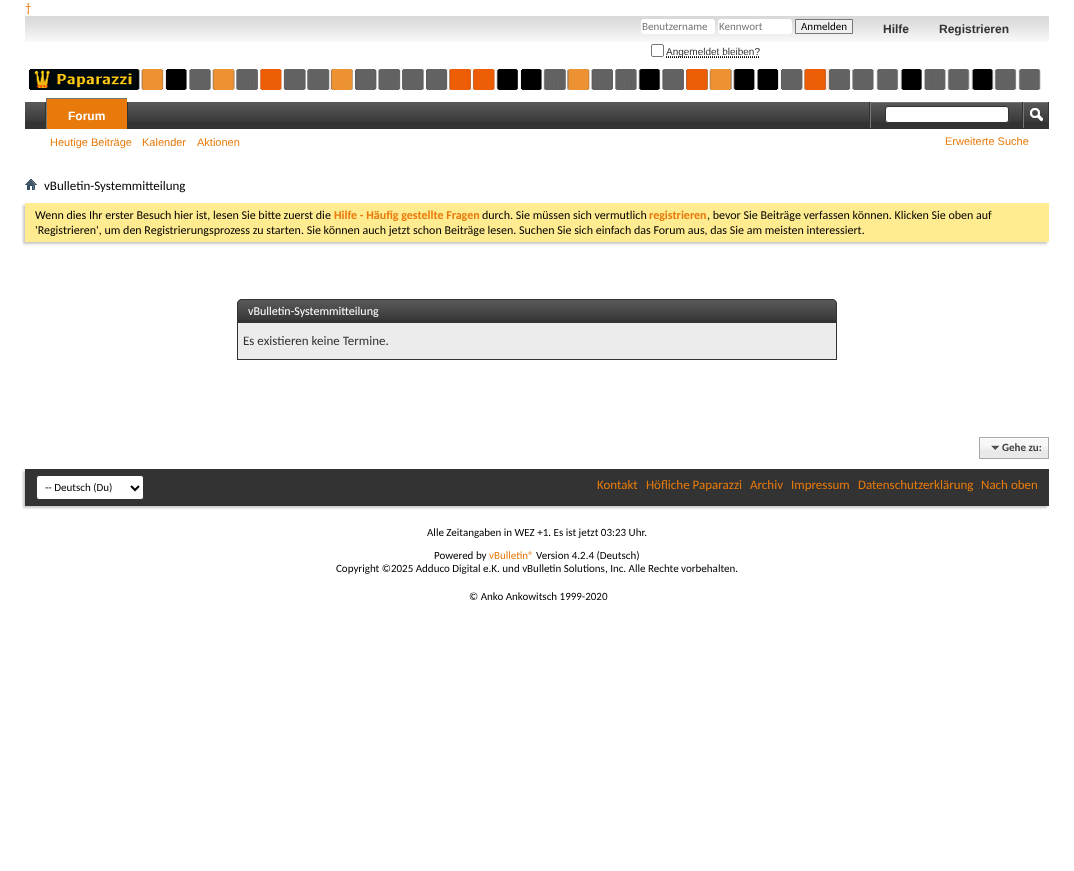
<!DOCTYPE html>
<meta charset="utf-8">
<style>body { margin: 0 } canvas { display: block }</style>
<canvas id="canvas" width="1074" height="871"></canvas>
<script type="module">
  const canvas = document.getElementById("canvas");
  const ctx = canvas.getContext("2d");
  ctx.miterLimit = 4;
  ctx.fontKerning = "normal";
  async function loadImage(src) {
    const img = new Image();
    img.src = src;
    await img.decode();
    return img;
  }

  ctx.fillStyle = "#ffffff";
  ctx.fillRect(0, 0, 1074, 871);
  ctx.font = "13px Carlito";
  ctx.fillStyle = "#e77a0b";
  ctx.fillText("†", 25, 12);
  ctx.drawImage(await loadImage("img1.png"), 25, 16, 1024, 26);
  ctx.fillStyle = "#ffffff";
  ctx.beginPath();
  ctx.roundRect(641, 19, 74, 15, 3);
  ctx.fill();
  ctx.font = "11px Carlito";
  ctx.fillStyle = "#777777";
  ctx.fillText("Benutzername", 642, 30);
  ctx.fillStyle = "#ffffff";
  ctx.beginPath();
  ctx.roundRect(718, 19, 74, 15, 3);
  ctx.fill();
  ctx.fillStyle = "#777777";
  ctx.fillText("Kennwort", 719, 30);
  ctx.fillStyle = "#efefef";
  ctx.beginPath();
  ctx.rect(795.5, 19.5, 57, 14);
  ctx.fill();
  ctx.strokeStyle = "#777777";
  ctx.stroke();
  ctx.fillStyle = "#000000";
  ctx.fillText("Anmelden", 801, 30);
  ctx.beginPath();
  ctx.roundRect(651.5, 44.5, 12, 12, 1.5);
  ctx.strokeStyle = "#767676";
  ctx.stroke();
  ctx.beginPath();
  ctx.moveTo(666, 57.5);
  ctx.lineTo(760, 57.5);
  ctx.strokeStyle = "#000000";
  ctx.setLineDash([1, 1]);
  ctx.stroke();
  ctx.beginPath();
  ctx.moveTo(666, 56.5);
  ctx.lineTo(760, 56.5);
  ctx.strokeStyle = "#333333";
  ctx.stroke();
  ctx.font = "10px Liberation Sans";
  ctx.fillStyle = "#333333";
  ctx.fillText("Angemeldet bleiben?", 666, 55);
  ctx.font = "bold 12px Liberation Sans";
  ctx.fillText("Hilfe", 883, 33);
  ctx.fillText("Registrieren", 939, 33);
  ctx.drawImage(await loadImage("img2.png"), 28, 69, 1013, 22);
  ctx.fillRect(25, 102, 1024, 26);
  ctx.drawImage(await loadImage("img3.png"), 25, 102, 1023, 20);
  ctx.fillRect(127, 102, 1, 26);
  ctx.fillRect(45, 102, 1, 26);
  ctx.fillRect(25, 128, 1024, 1);
  ctx.fillStyle = "#e77a0b";
  ctx.fillRect(47, 99, 80, 30);
  ctx.fillStyle = "#777777";
  ctx.fillRect(46, 98, 81, 1);
  ctx.fillRect(46, 98, 1, 31);
  ctx.fillStyle = "#ffffff";
  ctx.fillText("Forum", 68, 120);
  ctx.font = "11px Liberation Sans";
  ctx.fillStyle = "#e77a0b";
  ctx.fillText("Heutige Beiträge", 50, 146);
  ctx.fillText("Kalender", 142, 146);
  ctx.fillText("Aktionen", 197, 146);
  ctx.fillStyle = "#333333";
  ctx.fillRect(869, 102, 1, 26);
  ctx.fillStyle = "#777777";
  ctx.fillRect(870, 102, 152, 1);
  ctx.fillRect(870, 102, 1, 26);
  ctx.fillStyle = "#ffffff";
  ctx.beginPath();
  ctx.roundRect(885.5, 106.5, 123, 16, 2.5);
  ctx.fill();
  ctx.setLineDash([]);
  ctx.stroke();
  ctx.fillStyle = "#333333";
  ctx.fillRect(1022, 102, 1, 26);
  ctx.fillStyle = "#777777";
  ctx.fillRect(1023, 102, 25, 1);
  ctx.fillRect(1023, 102, 1, 26);
  ctx.drawImage(await loadImage("img4.png"), 1030, 108, 13, 14);
  ctx.fillStyle = "#e77a0b";
  ctx.fillText("Erweiterte Suche", 945, 145);
  ctx.drawImage(await loadImage("img5.png"), 25, 179, 12, 11);
  ctx.font = "13px Carlito";
  ctx.fillStyle = "#000000";
  ctx.fillText("vBulletin-Systemmitteilung", 44, 190);
  ctx.fillStyle = "#c8c8c8";
  ctx.filter = "blur(1px)";
  ctx.beginPath();
  ctx.rect(23, 205, 1024, 39);
  ctx.fill();
  ctx.filter = "none";
  ctx.fillStyle = "#ffeb90";
  ctx.fillRect(25, 203, 1024, 39);
  ctx.font = "12px Carlito";
  ctx.fillStyle = "#000000";
  ctx.fillText("Wenn dies Ihr erster Besuch hier ist, lesen Sie bitte zuerst die", 35, 219);
  ctx.font = "bold 12px Carlito";
  ctx.fillStyle = "#e77a0b";
  ctx.fillText("Hilfe - Häufig gestellte Fragen", 334, 219);
  ctx.font = "12px Carlito";
  ctx.fillStyle = "#000000";
  ctx.fillText("durch. Sie müssen sich vermutlich", 482, 219);
  ctx.font = "bold 12px Carlito";
  ctx.fillStyle = "#e77a0b";
  ctx.fillText("registrieren", 649, 219);
  ctx.font = "12px Carlito";
  ctx.fillStyle = "#000000";
  ctx.fillText(", bevor Sie Beiträge verfassen können. Klicken Sie oben auf", 707, 219);
  ctx.fillText("'Registrieren', um den Registrierungsprozess zu starten. Sie können auch jetzt schon Beiträge lesen. Suchen Sie sich einfach das Forum aus, das Sie am meisten interessiert.", 35, 234);
  ctx.fillStyle = "#333333";
  ctx.beginPath();
  ctx.roundRect(237, 299, 600, 24, [5, 5, 0, 0]);
  ctx.fill();
  ctx.drawImage(await loadImage("img6.png"), 237, 300, 600, 20);
  ctx.beginPath();
  ctx.roundRect(237.5, 299.5, 599, 23, [4.5, 4.5, 0, 0]);
  ctx.stroke();
  ctx.fillStyle = "#ffffff";
  ctx.fillText("vBulletin-Systemmitteilung", 248, 315);
  ctx.fillStyle = "#ececec";
  ctx.fillRect(238, 323, 598, 36);
  ctx.fillStyle = "#333333";
  ctx.fillRect(836, 323, 1, 37);
  ctx.fillRect(237, 359, 600, 1);
  ctx.fillRect(237, 323, 1, 37);
  ctx.font = "13px Carlito";
  ctx.fillText("Es existieren keine Termine.", 243, 345);
  ctx.fillStyle = "#e9e9e9";
  ctx.fillRect(980, 438, 68, 20);
  ctx.drawImage(await loadImage("img7.png"), 980, 438, 68, 12);
  ctx.strokeStyle = "#a8a8a8";
  ctx.strokeRect(979.5, 437.5, 69, 21);
  ctx.drawImage(await loadImage("img8.png"), 991, 445, 9, 6);
  ctx.font = "bold 11px Carlito";
  ctx.fillStyle = "#424242";
  ctx.fillText("Gehe zu:", 1002, 451);
  ctx.fillStyle = "#c8c8c8";
  ctx.filter = "blur(1px)";
  ctx.beginPath();
  ctx.rect(23, 471, 1024, 37);
  ctx.fill();
  ctx.filter = "none";
  ctx.fillStyle = "#333333";
  ctx.fillRect(25, 469, 1024, 37);
  ctx.fillStyle = "#ffffff";
  ctx.beginPath();
  ctx.roundRect(36.5, 475.5, 107, 24, 2.5);
  ctx.fill();
  ctx.strokeStyle = "#333333";
  ctx.stroke();
  ctx.beginPath();
  ctx.moveTo(131, 486);
  ctx.lineTo(135, 490);
  ctx.lineTo(139, 486);
  ctx.strokeStyle = "#000000";
  ctx.lineWidth = 2;
  ctx.stroke();
  ctx.font = "11px Carlito";
  ctx.fillStyle = "#000000";
  ctx.fillText("-- Deutsch (Du)", 45, 491);
  ctx.font = "13px Carlito";
  ctx.fillStyle = "#e77a0b";
  ctx.fillText("Kontakt", 597, 489);
  ctx.fillText("Höfliche Paparazzi", 646, 489);
  ctx.fillText("Archiv", 750, 489);
  ctx.fillText("Impressum", 791, 489);
  ctx.fillText("Datenschutzerklärung", 858, 489);
  ctx.fillText("Nach oben", 981, 489);
  ctx.font = "11px Carlito";
  ctx.fillStyle = "#000000";
  ctx.fillText("Alle Zeitangaben in WEZ +1. Es ist jetzt 03:23 Uhr.", 427, 536);
  ctx.fillText("Powered by", 434, 559);
  ctx.fillStyle = "#e77a0b";
  ctx.fillText("vBulletin®", 489, 559);
  ctx.fillStyle = "#000000";
  ctx.fillText("Version 4.2.4 (Deutsch)", 536, 559);
  ctx.fillText("Copyright ©2025 Adduco Digital e.K. und vBulletin Solutions, Inc. Alle Rechte vorbehalten.", 336, 572);
  ctx.fillText("© Anko Ankowitsch 1999-2020", 469, 600);
</script>
